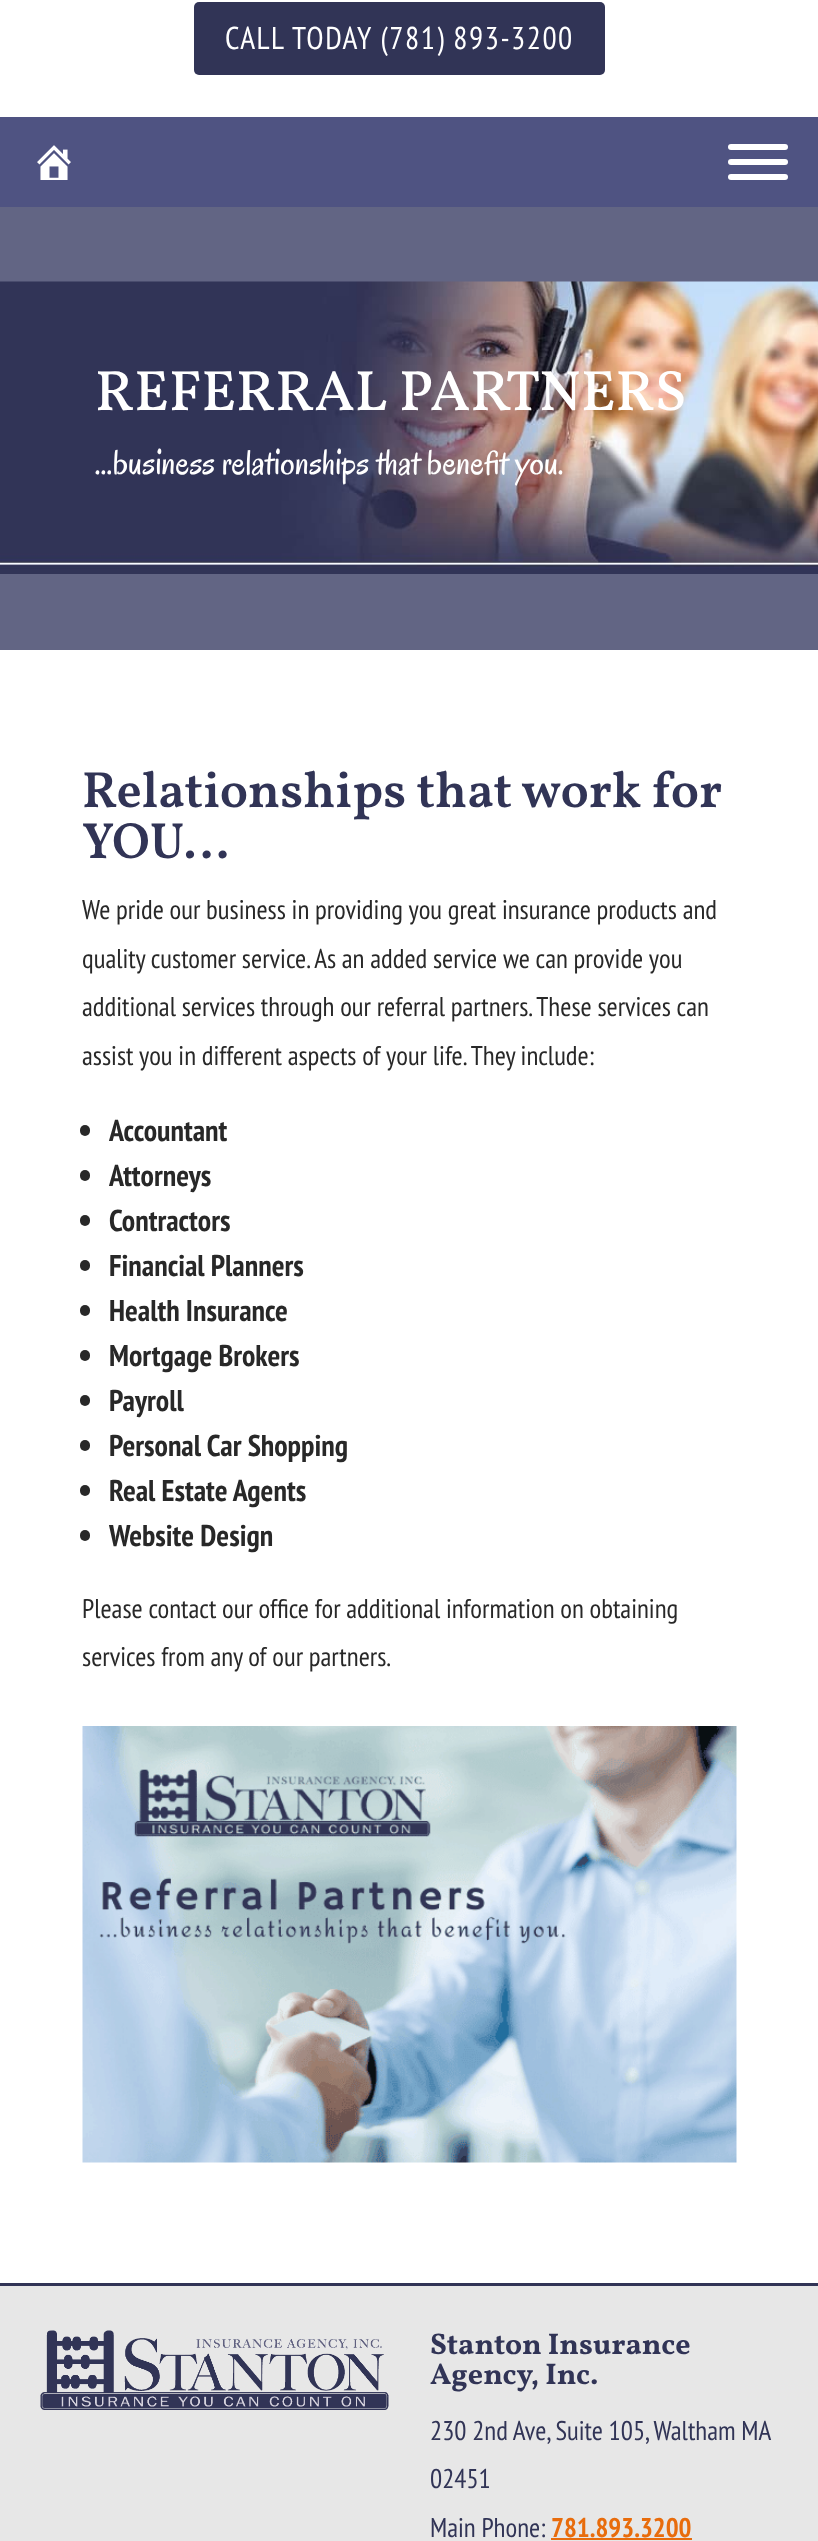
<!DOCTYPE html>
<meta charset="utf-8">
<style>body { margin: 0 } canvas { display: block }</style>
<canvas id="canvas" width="818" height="2541"></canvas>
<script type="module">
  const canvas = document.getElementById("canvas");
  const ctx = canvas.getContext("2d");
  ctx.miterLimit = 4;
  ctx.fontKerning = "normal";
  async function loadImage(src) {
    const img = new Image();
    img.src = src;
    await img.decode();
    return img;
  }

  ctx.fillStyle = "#ffffff";
  ctx.fillRect(0, 0, 818, 2541);
  ctx.fillStyle = "#313456";
  ctx.beginPath();
  ctx.roundRect(194, 2, 411, 73, 5);
  ctx.fill();
  ctx.letterSpacing = "1.5px";
  ctx.font = "31.5px PT Sans Narrow";
  ctx.fillStyle = "#ffffff";
  ctx.fillText("CALL TODAY (781) 893-3200", 225, 49);
  ctx.fillStyle = "#4f5382";
  ctx.fillRect(0, 117, 818, 90);
  ctx.drawImage(await loadImage("img1.png"), 37, 145, 34, 35);
  ctx.fillStyle = "#ffffff";
  ctx.beginPath();
  ctx.roundRect(728, 144, 60, 6, 3);
  ctx.fill();
  ctx.beginPath();
  ctx.roundRect(728, 159, 60, 6, 3);
  ctx.fill();
  ctx.beginPath();
  ctx.roundRect(728, 174, 60, 6, 3);
  ctx.fill();
  ctx.fillStyle = "#626584";
  ctx.fillRect(0, 207, 818, 443);
  ctx.drawImage(await loadImage("img2.png"), 0, 281, 818, 293);
  ctx.letterSpacing = "0px";
  ctx.font = "500 57px Vollkorn";
  ctx.fillStyle = "#ffffff";
  ctx.fillText("REFERRAL PARTNERS", 95, 410);
  ctx.font = "36px Oregano";
  ctx.fillText("…business relationships that benefit you.", 95, 474);
  ctx.font = "600 51px Vollkorn";
  ctx.fillStyle = "#313456";
  ctx.fillText("Relationships that work for", 82, 807);
  ctx.fillText("YOU…", 82, 858);
  ctx.font = "27px PT Sans Narrow";
  ctx.fillStyle = "#282828";
  ctx.fillText("We pride our business in providing you great insurance products and", 82, 919);
  ctx.fillText("quality customer service. As an added service we can provide you", 82, 968);
  ctx.fillText("additional services through our referral partners. These services can", 82, 1016);
  ctx.fillText("assist you in different aspects of your life. They include:", 82, 1065);
  ctx.beginPath();
  ctx.roundRect(80, 1125, 10, 11, 5);
  ctx.fill();
  ctx.font = "bold 30px PT Sans Narrow";
  ctx.fillText("Accountant", 109, 1141);
  ctx.beginPath();
  ctx.roundRect(80, 1170, 10, 11, 5);
  ctx.fill();
  ctx.fillText("Attorneys", 109, 1186);
  ctx.beginPath();
  ctx.roundRect(80, 1215, 10, 11, 5);
  ctx.fill();
  ctx.fillText("Contractors", 109, 1231);
  ctx.beginPath();
  ctx.roundRect(80, 1260, 10, 11, 5);
  ctx.fill();
  ctx.fillText("Financial Planners", 109, 1276);
  ctx.beginPath();
  ctx.roundRect(80, 1305, 10, 11, 5);
  ctx.fill();
  ctx.fillText("Health Insurance", 109, 1321);
  ctx.beginPath();
  ctx.roundRect(80, 1350, 10, 11, 5);
  ctx.fill();
  ctx.fillText("Mortgage Brokers", 109, 1366);
  ctx.beginPath();
  ctx.roundRect(80, 1395, 10, 11, 5);
  ctx.fill();
  ctx.fillText("Payroll", 109, 1411);
  ctx.beginPath();
  ctx.roundRect(80, 1440, 10, 11, 5);
  ctx.fill();
  ctx.fillText("Personal Car Shopping", 109, 1456);
  ctx.beginPath();
  ctx.roundRect(80, 1485, 10, 11, 5);
  ctx.fill();
  ctx.fillText("Real Estate Agents", 109, 1501);
  ctx.beginPath();
  ctx.roundRect(80, 1530, 10, 11, 5);
  ctx.fill();
  ctx.fillText("Website Design", 109, 1546);
  ctx.font = "27px PT Sans Narrow";
  ctx.fillText("Please contact our office for additional information on obtaining", 82, 1618);
  ctx.fillText("services from any of our partners.", 82, 1666);
  ctx.drawImage(await loadImage("img3.png"), 82, 1726, 655, 437);
  ctx.fillStyle = "#313456";
  ctx.fillRect(0, 2283, 818, 3);
  ctx.fillStyle = "#e7e7e7";
  ctx.fillRect(0, 2286, 818, 255);
  ctx.drawImage(await loadImage("img4.png"), 40, 2330, 349, 80);
  ctx.font = "bold 30px Vollkorn";
  ctx.fillStyle = "#313456";
  ctx.fillText("Stanton Insurance", 430, 2354);
  ctx.fillText("Agency, Inc.", 430, 2384);
  ctx.font = "27px PT Sans Narrow";
  ctx.fillText("230 2nd Ave, Suite 105, Waltham MA", 430, 2440);
  ctx.fillText("02451", 430, 2488);
  ctx.fillText("Main Phone:", 430, 2537);
  ctx.font = "bold 27px PT Sans Narrow";
  ctx.fillStyle = "#e86c0c";
  ctx.fillText("781.893.3200", 551, 2537);
  ctx.fillRect(551, 2538, 141, 2);
</script>
